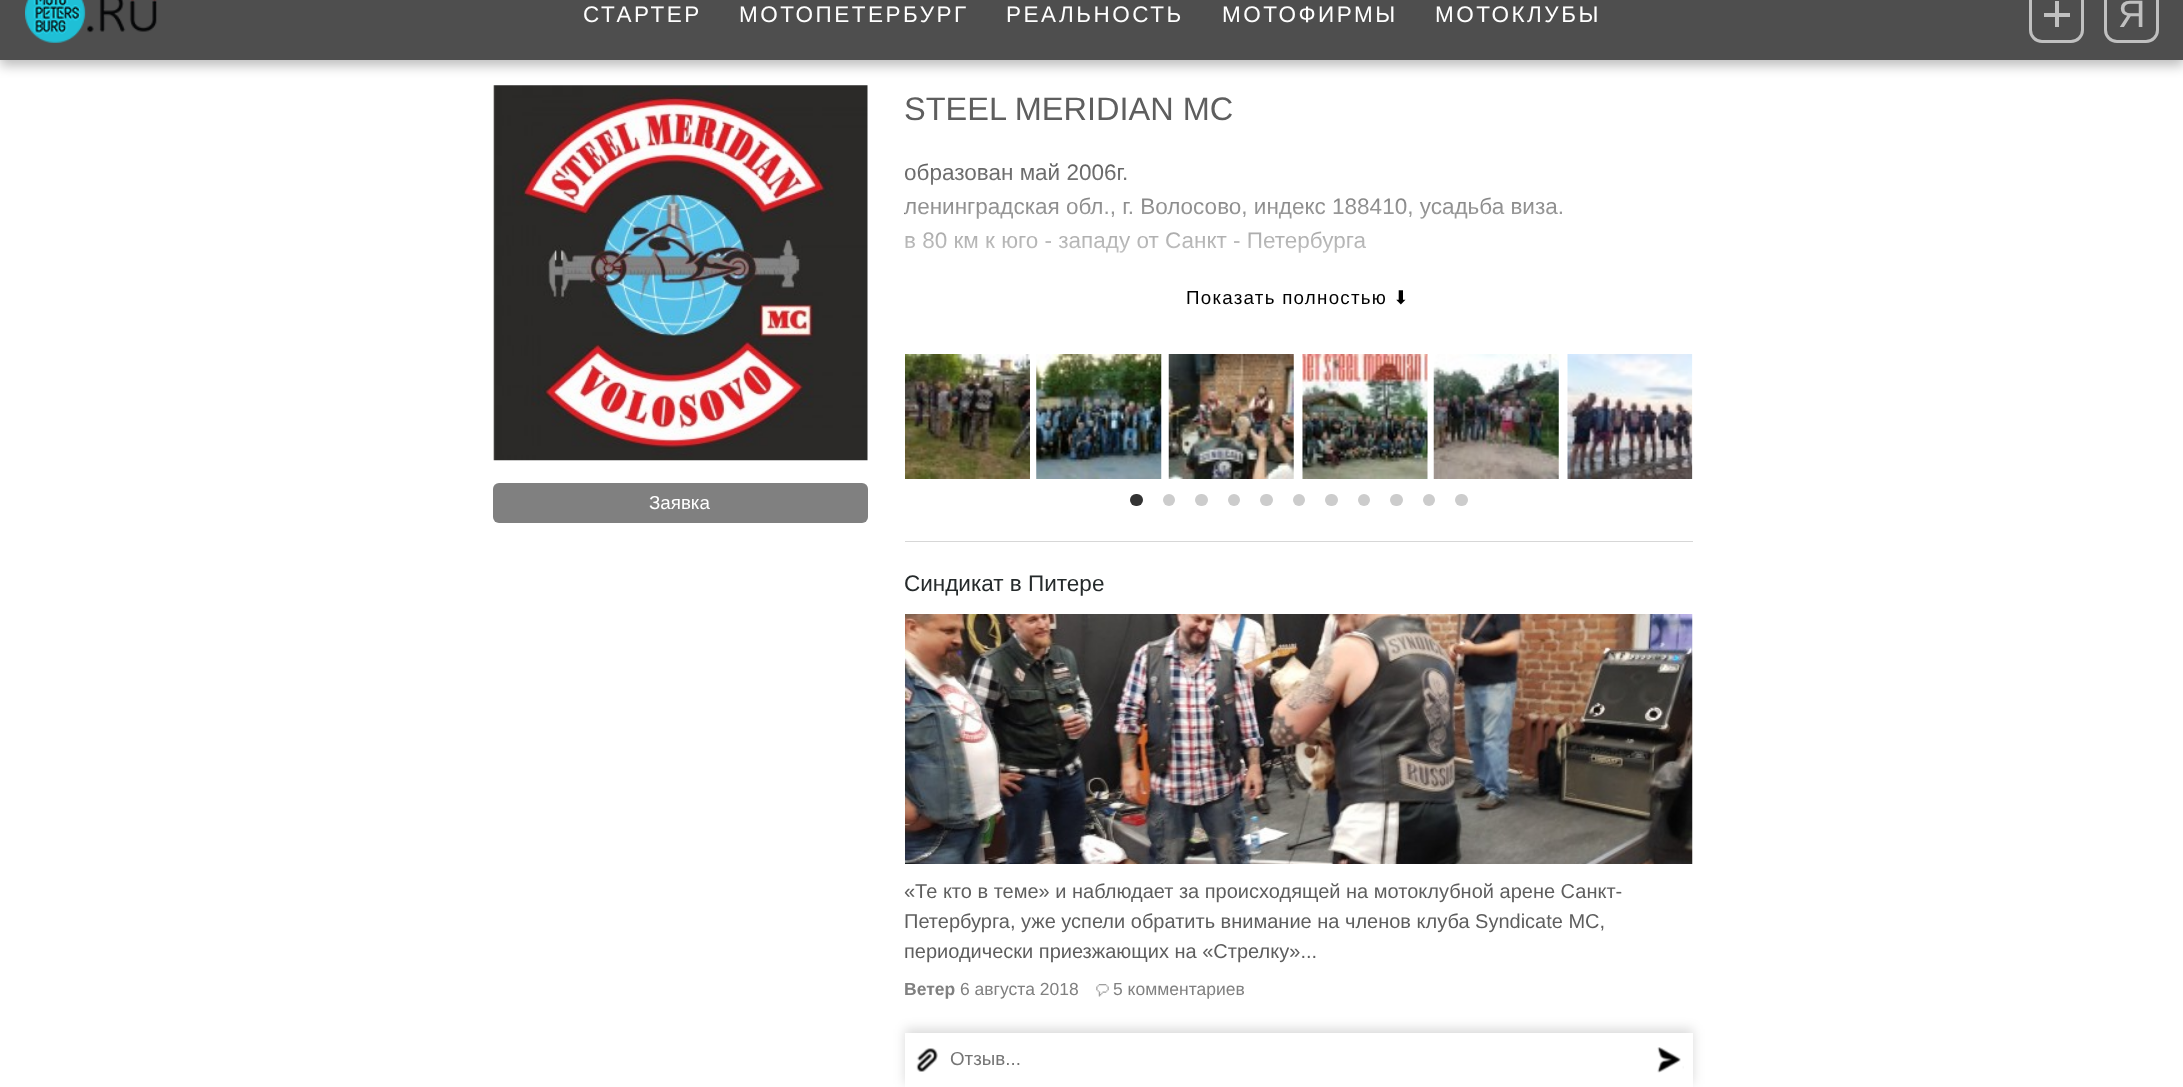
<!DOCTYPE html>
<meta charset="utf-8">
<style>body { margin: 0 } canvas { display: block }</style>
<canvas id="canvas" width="2183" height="1087"></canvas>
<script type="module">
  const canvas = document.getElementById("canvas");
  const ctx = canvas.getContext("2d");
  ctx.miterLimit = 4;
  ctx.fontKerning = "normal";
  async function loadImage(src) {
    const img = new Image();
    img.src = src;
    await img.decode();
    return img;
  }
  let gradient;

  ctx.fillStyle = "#ffffff";
  ctx.fillRect(0, 0, 2183, 1087);
  ctx.fillStyle = "rgba(0, 0, 0, 0.25)";
  ctx.filter = "blur(6px)";
  ctx.beginPath();
  ctx.rect(0, -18, 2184, 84);
  ctx.fill();
  ctx.filter = "none";
  ctx.fillStyle = "#4e4e4e";
  ctx.fillRect(0, 0, 2183, 60);
  ctx.drawImage(await loadImage("img1.png"), 25, 0, 132, 43);
  ctx.letterSpacing = "2.5px";
  ctx.font = "22.5px Liberation Sans";
  ctx.fillStyle = "#ffffff";
  ctx.fillText("СТАРТЕР", 583, 22);
  ctx.fillText("МОТОПЕТЕРБУРГ", 739, 22);
  ctx.fillText("РЕАЛЬНОСТЬ", 1006, 22);
  ctx.fillText("МОТОФИРМЫ", 1222, 22);
  ctx.fillText("МОТОКЛУБЫ", 1435, 22);
  ctx.beginPath();
  ctx.roundRect(2030.5, -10.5, 52, 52, 11.5);
  ctx.strokeStyle = "#c0c0c0";
  ctx.lineWidth = 3;
  ctx.stroke();
  ctx.fillStyle = "#c0c0c0";
  ctx.fillRect(2044, 13, 26, 4);
  ctx.fillRect(2055, 1, 4, 26);
  ctx.beginPath();
  ctx.roundRect(2105.5, -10.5, 52, 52, 11.5);
  ctx.stroke();
  ctx.letterSpacing = "0px";
  ctx.font = "38px Liberation Sans";
  ctx.fillText("Я", 2118, 27);
  ctx.font = "32.5px Liberation Sans";
  ctx.fillStyle = "#5e5e5e";
  ctx.fillText("STEEL MERIDIAN MC", 904, 120);
  ctx.font = "22.5px Liberation Sans";
  ctx.fillText("образован май 2006г.", 904, 180);
  ctx.fillText("ленинградская обл., г. Волосово, индекс 188410, усадьба виза.", 904, 214);
  ctx.fillText("в 80 км к юго - западу от Санкт - Петербурга", 904, 248);
  gradient = ctx.createLinearGradient(1324, 160, 1324, 310);
  gradient.addColorStop(0, "rgba(255, 255, 255, 0)");
  gradient.addColorStop(1, "#ffffff");
  ctx.fillStyle = gradient;
  ctx.fillRect(905, 164, 658, 89);
  ctx.letterSpacing = "1.25px";
  ctx.font = "18.75px Liberation Sans";
  ctx.fillStyle = "#000000";
  ctx.fillText("Показать полностью", 1186, 304);
  ctx.font = "18.75px DejaVu Sans";
  ctx.fillText("⬇", 1393, 304);
  ctx.drawImage(await loadImage("img2.png"), 905, 354, 125, 125);
  ctx.drawImage(await loadImage("img3.png"), 1036, 354, 126, 125);
  ctx.drawImage(await loadImage("img4.png"), 1168, 354, 126, 125);
  ctx.drawImage(await loadImage("img5.png"), 1302, 354, 126, 125);
  ctx.drawImage(await loadImage("img6.png"), 1433, 354, 126, 125);
  ctx.drawImage(await loadImage("img7.png"), 1567, 354, 126, 125);
  ctx.fillStyle = "#333333";
  ctx.beginPath();
  ctx.roundRect(1130, 494, 13, 12, 6);
  ctx.fill();
  ctx.fillStyle = "#cccccc";
  ctx.beginPath();
  ctx.arc(1169, 500, 6, 0, Math.PI * 2);
  ctx.fill();
  ctx.beginPath();
  ctx.roundRect(1195, 494, 13, 12, 6);
  ctx.fill();
  ctx.beginPath();
  ctx.arc(1234, 500, 6, 0, Math.PI * 2);
  ctx.fill();
  ctx.beginPath();
  ctx.roundRect(1260, 494, 13, 12, 6);
  ctx.fill();
  ctx.beginPath();
  ctx.arc(1299, 500, 6, 0, Math.PI * 2);
  ctx.fill();
  ctx.beginPath();
  ctx.roundRect(1325, 494, 13, 12, 6);
  ctx.fill();
  ctx.beginPath();
  ctx.arc(1364, 500, 6, 0, Math.PI * 2);
  ctx.fill();
  ctx.beginPath();
  ctx.roundRect(1390, 494, 13, 12, 6);
  ctx.fill();
  ctx.beginPath();
  ctx.arc(1429, 500, 6, 0, Math.PI * 2);
  ctx.fill();
  ctx.beginPath();
  ctx.roundRect(1455, 494, 13, 12, 6);
  ctx.fill();
  ctx.drawImage(await loadImage("img8.png"), 493, 85, 375, 376);
  ctx.fillStyle = "#808080";
  ctx.beginPath();
  ctx.roundRect(493, 483, 375, 40, 6);
  ctx.fill();
  ctx.letterSpacing = "0px";
  ctx.font = "18.75px Liberation Sans";
  ctx.fillStyle = "#ffffff";
  ctx.fillText("Заявка", 649, 509);
  ctx.fillStyle = "#d7d7d7";
  ctx.fillRect(905, 541, 788, 1);
  ctx.font = "22.5px Liberation Sans";
  ctx.fillStyle = "#252a2b";
  ctx.fillText("Синдикат в Питере", 904, 591);
  ctx.drawImage(await loadImage("img9.png"), 905, 614, 788, 250);
  ctx.font = "20px Liberation Sans";
  ctx.fillStyle = "#5e5e5e";
  ctx.fillText("«Те кто в теме» и наблюдает за происходящей на мотоклубной арене Санкт-", 904, 898);
  ctx.fillText("Петербурга, уже успели обратить внимание на членов клуба Syndicate MC,", 904, 928);
  ctx.fillText("периодически приезжающих на «Стрелку»...", 904, 958);
  ctx.font = "bold 17.5px Liberation Sans";
  ctx.fillStyle = "#808080";
  ctx.fillText("Ветер", 904, 995);
  ctx.font = "17.5px Liberation Sans";
  ctx.fillText("6 августа 2018", 960, 995);
  ctx.drawImage(await loadImage("img10.png"), 1096, 984, 13, 13);
  ctx.fillText("5 комментариев", 1113, 995);
  ctx.fillStyle = "rgba(0, 0, 0, 0.15)";
  ctx.filter = "blur(6px)";
  ctx.beginPath();
  ctx.rect(905, 1029, 788, 55);
  ctx.fill();
  ctx.filter = "none";
  ctx.fillStyle = "#ffffff";
  ctx.fillRect(905, 1033, 788, 54);
  ctx.drawImage(await loadImage("img11.png"), 916, 1048, 22, 24);
  ctx.font = "18.75px Liberation Sans";
  ctx.fillStyle = "#757575";
  ctx.fillText("Отзыв...", 950, 1065);
  ctx.drawImage(await loadImage("img12.png"), 1657, 1047, 27, 26);
</script>
